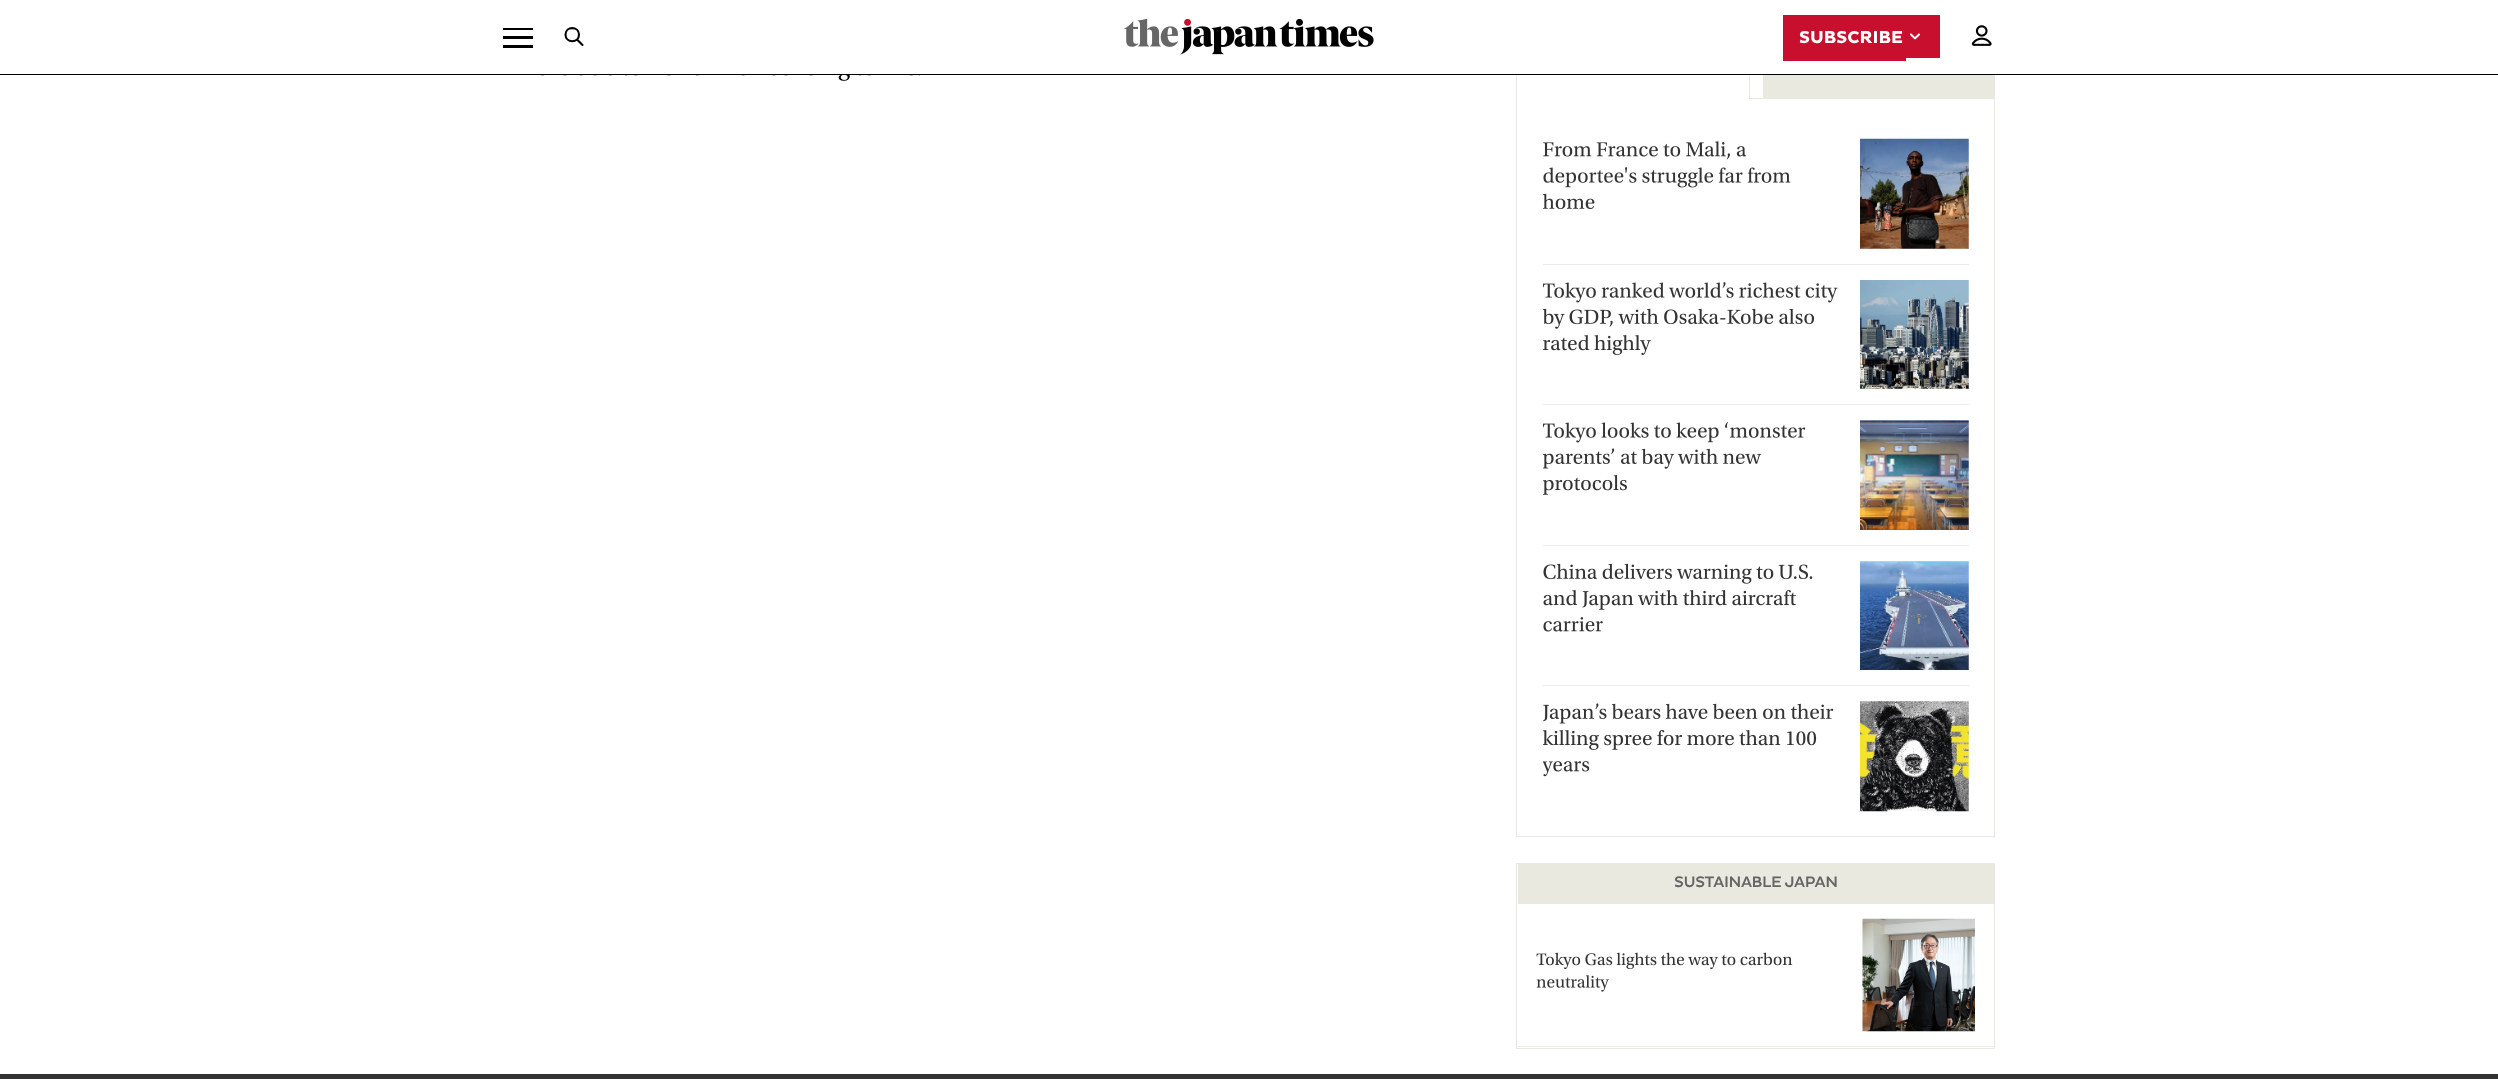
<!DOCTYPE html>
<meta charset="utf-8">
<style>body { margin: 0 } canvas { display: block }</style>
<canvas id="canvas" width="2498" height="1079"></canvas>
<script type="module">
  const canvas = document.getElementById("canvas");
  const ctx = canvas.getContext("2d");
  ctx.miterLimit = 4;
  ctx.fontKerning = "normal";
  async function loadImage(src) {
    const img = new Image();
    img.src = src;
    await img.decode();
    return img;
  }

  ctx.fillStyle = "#ffffff";
  ctx.fillRect(0, 0, 2498, 1079);
  ctx.fillStyle = "#000000";
  ctx.fillRect(0, 74, 2498, 1);
  ctx.fillRect(503, 45, 30, 3);
  ctx.fillRect(503, 36, 30, 3);
  ctx.fillRect(503, 28, 30, 2);
  ctx.beginPath();
  ctx.moveTo(582.5, 45);
  ctx.lineTo(577, 39.5);
  ctx.moveTo(579, 34.5);
  ctx.bezierCurveTo(579, 43.5, 565.5, 43.5, 565.5, 34.5);
  ctx.bezierCurveTo(565.5, 26, 579, 26, 579, 34.5);
  ctx.closePath();
  ctx.strokeStyle = "#000000";
  ctx.lineWidth = 2.1;
  ctx.lineCap = "round";
  ctx.lineJoin = "round";
  ctx.stroke();
  ctx.drawImage(await loadImage("img1.png"), 1124, 19, 250, 36);
  ctx.fillStyle = "#c8102e";
  ctx.fillRect(1783, 15, 123, 46);
  ctx.font = "bold 17.5px 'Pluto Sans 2'";
  ctx.fillStyle = "#ffffff";
  ctx.fillText("SUBSCRIBE", 1799, 43);
  ctx.fillStyle = "#c8102e";
  ctx.fillRect(1906, 15, 34, 43);
  ctx.drawImage(await loadImage("img2.png"), 1909, 33, 11, 7);
  ctx.drawImage(await loadImage("img3.png"), 1971, 25, 21, 21);
  ctx.drawImage(await loadImage("img4.png"), 540, 75, 380, 6);
  ctx.fillStyle = "#eae9e0";
  ctx.fillRect(1994, 99, 1, 739);
  ctx.fillRect(1516, 836, 479, 1);
  ctx.fillRect(1516, 75, 1, 763);
  ctx.fillStyle = "#ececec";
  ctx.fillRect(1543, 264, 426, 1);
  ctx.drawImage(await loadImage("img5.png"), 1543, 141, 204, 19);
  ctx.drawImage(await loadImage("img6.png"), 1543, 167, 248, 21);
  ctx.drawImage(await loadImage("img7.png"), 1543, 193, 52, 16);
  ctx.fillStyle = "#f8f8f8";
  ctx.fillRect(1860, 139, 109, 110);
  ctx.drawImage(await loadImage("img8.png"), 1860, 138, 109, 111);
  ctx.fillStyle = "#ececec";
  ctx.fillRect(1543, 404, 426, 1);
  ctx.drawImage(await loadImage("img9.png"), 1543, 282, 295, 21);
  ctx.drawImage(await loadImage("img10.png"), 1543, 308, 271, 21);
  ctx.drawImage(await loadImage("img11.png"), 1543, 335, 108, 20);
  ctx.fillStyle = "#f8f8f8";
  ctx.fillRect(1860, 280, 109, 109);
  ctx.drawImage(await loadImage("img12.png"), 1860, 280, 109, 109);
  ctx.fillStyle = "#ececec";
  ctx.fillRect(1543, 545, 426, 1);
  ctx.drawImage(await loadImage("img13.png"), 1543, 422, 263, 21);
  ctx.drawImage(await loadImage("img14.png"), 1543, 448, 219, 21);
  ctx.drawImage(await loadImage("img15.png"), 1543, 475, 84, 20);
  ctx.drawImage(await loadImage("img16.png"), 1860, 420, 109, 110);
  ctx.fillRect(1543, 685, 426, 1);
  ctx.drawImage(await loadImage("img17.png"), 1543, 563, 270, 21);
  ctx.drawImage(await loadImage("img18.png"), 1543, 590, 253, 20);
  ctx.drawImage(await loadImage("img19.png"), 1543, 617, 60, 15);
  ctx.fillStyle = "#f8f8f8";
  ctx.fillRect(1860, 561, 109, 109);
  ctx.drawImage(await loadImage("img20.png"), 1860, 561, 109, 109);
  ctx.drawImage(await loadImage("img21.png"), 1543, 703, 291, 21);
  ctx.drawImage(await loadImage("img22.png"), 1543, 730, 274, 20);
  ctx.drawImage(await loadImage("img23.png"), 1543, 761, 47, 16);
  ctx.fillRect(1860, 701, 109, 110);
  ctx.drawImage(await loadImage("img24.png"), 1860, 701, 109, 111);
  ctx.fillStyle = "#eae9e0";
  ctx.fillRect(1749, 75, 1, 24);
  ctx.fillRect(1750, 98, 13, 1);
  ctx.fillRect(1763, 75, 232, 24);
  ctx.strokeStyle = "#eae9e0";
  ctx.lineWidth = 1;
  ctx.lineJoin = "miter";
  ctx.strokeRect(1516.5, 863.5, 478, 185);
  ctx.fillRect(1518, 864, 476, 40);
  ctx.font = "bold 15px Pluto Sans";
  ctx.fillStyle = "#666666";
  ctx.fillText("SUSTAINABLE JAPAN", 1674, 887);
  ctx.fillStyle = "#ececec";
  ctx.fillRect(1518, 1046, 476, 1);
  ctx.drawImage(await loadImage("img25.png"), 1536, 952, 257, 18);
  ctx.drawImage(await loadImage("img26.png"), 1536, 975, 73, 17);
  ctx.drawImage(await loadImage("img27.png"), 1862, 918, 113, 114);
  ctx.fillStyle = "#333333";
  ctx.fillRect(0, 1074, 2498, 5);
</script>
